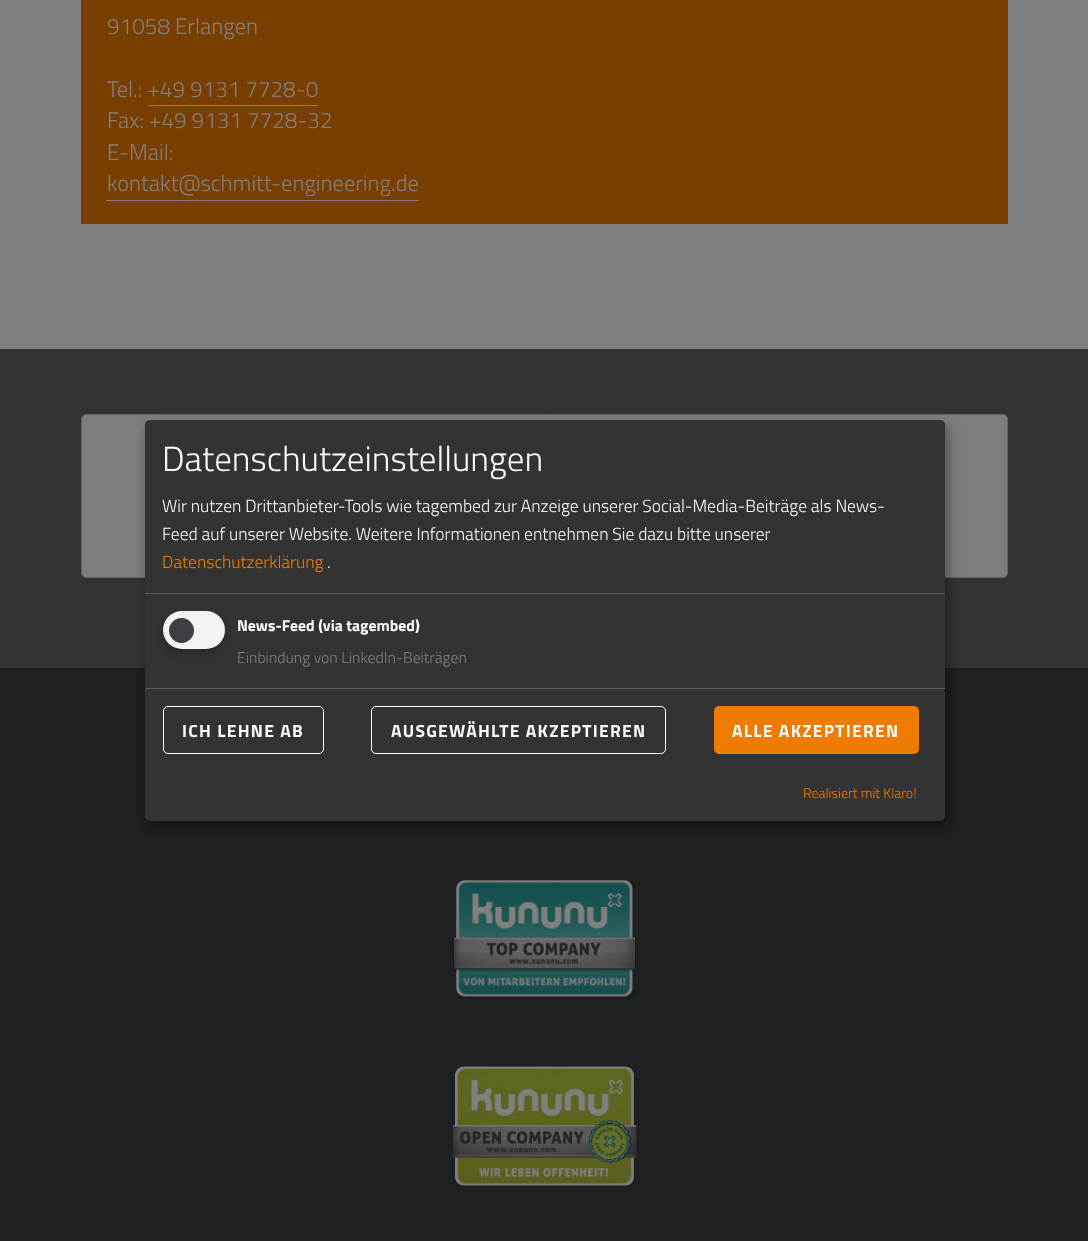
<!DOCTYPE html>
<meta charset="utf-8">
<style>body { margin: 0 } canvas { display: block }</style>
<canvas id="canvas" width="1088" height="1241"></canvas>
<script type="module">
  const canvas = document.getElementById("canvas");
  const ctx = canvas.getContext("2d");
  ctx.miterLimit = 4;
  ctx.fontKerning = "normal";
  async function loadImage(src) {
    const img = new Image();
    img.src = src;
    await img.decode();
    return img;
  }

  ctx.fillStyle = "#808080";
  ctx.fillRect(0, 0, 1088, 1241);
  ctx.fillStyle = "#783e00";
  ctx.fillRect(81, 0, 927, 224);
  ctx.font = "300 22.5px Titillium Web";
  ctx.fillStyle = "#808080";
  ctx.fillText("91058 Erlangen", 107, 34);
  ctx.fillText("Tel.: +49 9131 7728-0", 107, 97);
  ctx.fillRect(148, 105, 170, 1);
  ctx.fillText("Fax: +49 9131 7728-32", 107, 128);
  ctx.fillText("E-Mail:", 107, 160);
  ctx.fillText("kontakt@schmitt-engineering.de", 107, 191);
  ctx.fillRect(106, 200, 313, 1);
  ctx.fillStyle = "#313437";
  ctx.fillRect(0, 349, 1088, 319);
  ctx.fillStyle = "#7d7d7d";
  ctx.beginPath();
  ctx.roundRect(81.5, 414.5, 926, 163, 4.5);
  ctx.fill();
  ctx.strokeStyle = "#646464";
  ctx.stroke();
  ctx.fillStyle = "#1e2022";
  ctx.fillRect(0, 668, 1088, 573);
  ctx.drawImage(await loadImage("img1.png"), 452, 879, 185, 120);
  ctx.drawImage(await loadImage("img2.png"), 452, 1066, 185, 121);
  ctx.fillStyle = "rgba(0, 0, 0, 0.19)";
  ctx.filter = "blur(6px)";
  ctx.beginPath();
  ctx.roundRect(151, 426, 800, 402, 5);
  ctx.fill();
  ctx.filter = "none";
  ctx.fillStyle = "rgba(0, 0, 0, 0.2)";
  ctx.filter = "blur(4px)";
  ctx.beginPath();
  ctx.roundRect(145, 425, 800, 401, 5);
  ctx.fill();
  ctx.filter = "none";
  ctx.fillStyle = "#333333";
  ctx.beginPath();
  ctx.roundRect(145, 420, 800, 401, 5);
  ctx.fill();
  ctx.fillStyle = "#5c5c5c";
  ctx.fillRect(145, 593, 800, 1);
  ctx.font = "300 35px Titillium Web";
  ctx.fillStyle = "#fafafa";
  ctx.fillText("Datenschutzeinstellungen", 162, 471);
  ctx.font = "300 17.5px Titillium Web";
  ctx.fillText("Wir nutzen Drittanbieter-Tools wie tagembed zur Anzeige unserer Social-Media-Beiträge als News-", 162, 512);
  ctx.fillText("Feed auf unserer Website. Weitere Informationen entnehmen Sie dazu bitte unserer", 162, 540);
  ctx.fillStyle = "#ef7c00";
  ctx.fillText("Datenschutzerklärung", 162, 568);
  ctx.fillStyle = "#fafafa";
  ctx.fillText(".", 327, 568);
  ctx.fillStyle = "rgba(0, 0, 0, 0.2)";
  ctx.filter = "blur(4px)";
  ctx.beginPath();
  ctx.roundRect(163, 616, 62, 38, 19);
  ctx.fill();
  ctx.filter = "none";
  ctx.fillStyle = "#f2f2f2";
  ctx.beginPath();
  ctx.roundRect(163, 611, 62, 38, 19);
  ctx.fill();
  ctx.fillStyle = "#3b3f44";
  ctx.beginPath();
  ctx.arc(181.5, 630.5, 12.5, 0, Math.PI * 2);
  ctx.fill();
  ctx.font = "bold 15.75px Titillium Web";
  ctx.fillStyle = "#fafafa";
  ctx.fillText("News-Feed (via tagembed)", 237, 631);
  ctx.font = "300 15.75px Titillium Web";
  ctx.fillStyle = "#808080";
  ctx.fillText("Einbindung von LinkedIn-Beiträgen", 237, 663);
  ctx.fillStyle = "#5c5c5c";
  ctx.fillRect(145, 688, 800, 1);
  ctx.beginPath();
  ctx.roundRect(163.5, 706.5, 160, 47, 4.5);
  ctx.strokeStyle = "#ffffff";
  ctx.stroke();
  ctx.letterSpacing = "1.25px";
  ctx.font = "bold 17.5px Titillium Web";
  ctx.fillStyle = "#fafafa";
  ctx.fillText("ICH LEHNE AB", 182, 737);
  ctx.beginPath();
  ctx.roundRect(371.5, 706.5, 294, 47, 4.5);
  ctx.stroke();
  ctx.fillText("AUSGEWÄHLTE AKZEPTIEREN", 391, 737);
  ctx.fillStyle = "#ef7c00";
  ctx.beginPath();
  ctx.roundRect(714, 706, 205, 48, 5);
  ctx.fill();
  ctx.fillStyle = "#fafafa";
  ctx.fillText("ALLE AKZEPTIEREN", 732, 737);
  ctx.letterSpacing = "0px";
  ctx.font = "300 14px Titillium Web";
  ctx.fillStyle = "#ef7c00";
  ctx.fillText("Realisiert mit Klaro!", 803, 798);
</script>
